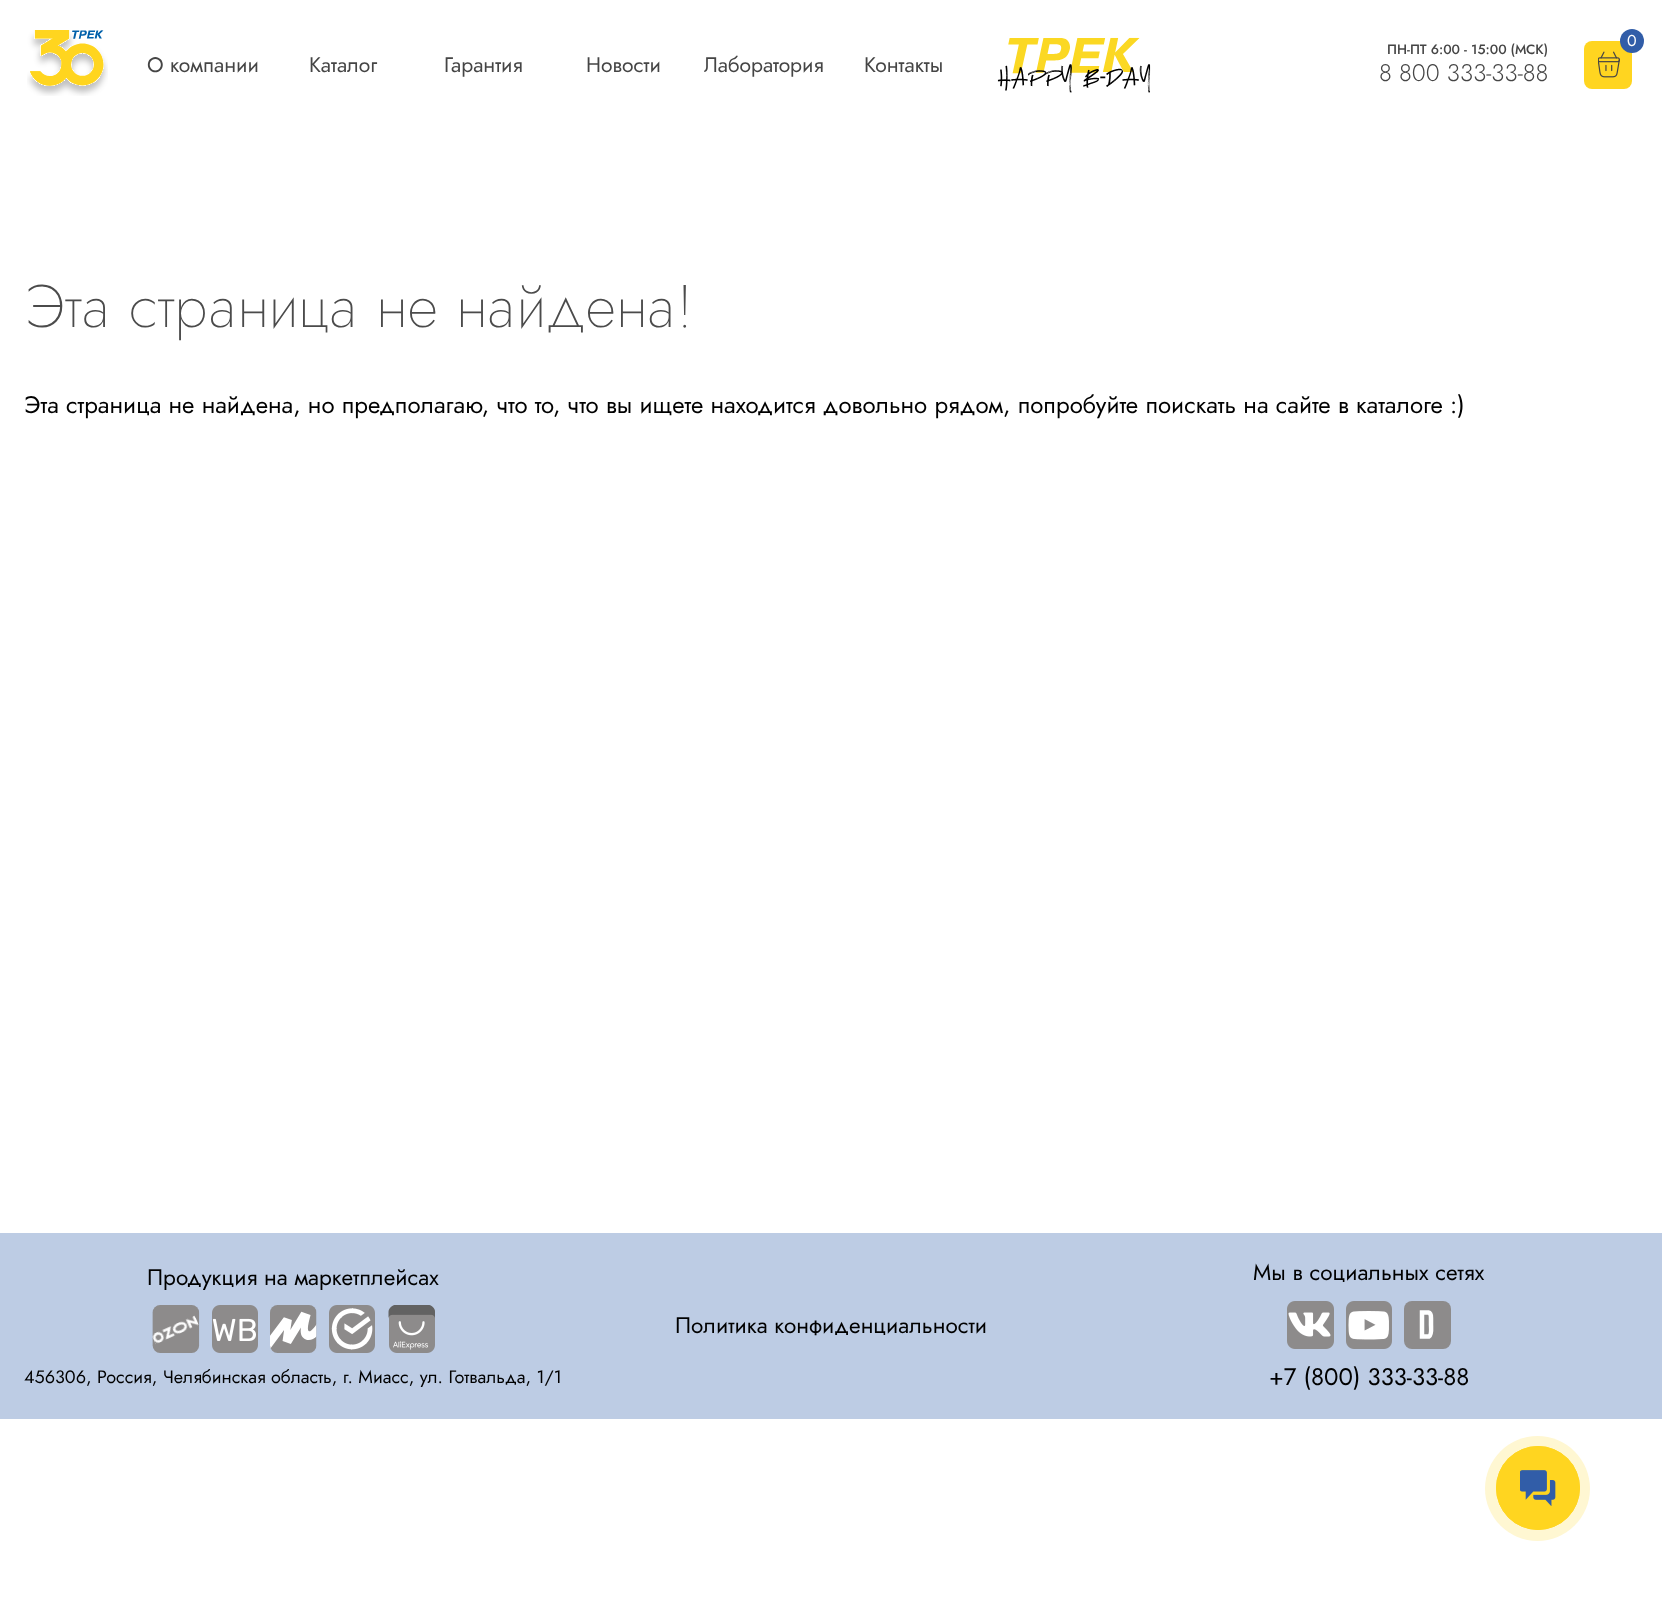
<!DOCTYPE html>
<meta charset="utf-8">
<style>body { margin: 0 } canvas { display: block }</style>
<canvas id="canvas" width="1662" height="1612"></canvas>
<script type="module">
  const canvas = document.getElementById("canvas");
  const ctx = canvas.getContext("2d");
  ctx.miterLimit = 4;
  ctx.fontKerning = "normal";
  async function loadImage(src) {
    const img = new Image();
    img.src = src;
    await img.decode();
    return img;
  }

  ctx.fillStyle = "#ffffff";
  ctx.fillRect(0, 0, 1662, 1612);
  ctx.drawImage(await loadImage("img1.png"), 27, 30, 81, 66);
  ctx.font = "21px Jost";
  ctx.fillStyle = "#454545";
  ctx.fillText("О компании", 147, 72);
  ctx.fillText("Каталог", 309, 72);
  ctx.fillText("Гарантия", 444, 72);
  ctx.fillText("Новости", 586, 72);
  ctx.fillText("Лаборатория", 704, 72);
  ctx.fillText("Контакты", 864, 72);
  ctx.drawImage(await loadImage("img2.png"), 997, 37, 154, 56);
  ctx.fillStyle = "#ffd520";
  ctx.beginPath();
  ctx.roundRect(1584, 41, 48, 48, 8);
  ctx.fill();
  ctx.fillStyle = "#315da8";
  ctx.beginPath();
  ctx.arc(1632, 41, 12, 0, Math.PI * 2);
  ctx.fill();
  ctx.font = "16px Jost";
  ctx.fillStyle = "#ffffff";
  ctx.fillText("0", 1627, 46);
  ctx.drawImage(await loadImage("img3.png"), 1598, 51, 22, 27);
  ctx.font = "500 13.5px Jost";
  ctx.fillStyle = "#454545";
  ctx.fillText("ПН-ПТ 6:00 - 15:00 (МСК)", 1387, 54);
  ctx.font = "300 24px Jost";
  ctx.fillText("8 800 333-33-88", 1379, 81);
  ctx.font = "200 60px Jost";
  ctx.fillStyle = "#4b4b4b";
  ctx.fillText("Эта страница не найдена!", 24, 327);
  ctx.font = "24px Jost";
  ctx.fillStyle = "#000000";
  ctx.fillText("Эта страница не найдена, но предполагаю, что то, что вы ищете находится довольно рядом, попробуйте поискать на сайте в каталоге :)", 24, 413);
  ctx.fillStyle = "#bdcce4";
  ctx.fillRect(0, 1233, 1662, 186);
  ctx.font = "22.5px Jost";
  ctx.fillStyle = "#000000";
  ctx.fillText("Продукция на маркетплейсах", 147, 1285);
  ctx.drawImage(await loadImage("img4.png"), 152, 1305, 48, 48);
  ctx.drawImage(await loadImage("img5.png"), 212, 1305, 46, 48);
  ctx.drawImage(await loadImage("img6.png"), 270, 1305, 47, 48);
  ctx.drawImage(await loadImage("img7.png"), 329, 1305, 46, 48);
  ctx.drawImage(await loadImage("img8.png"), 388, 1305, 47, 48);
  ctx.font = "18px Jost";
  ctx.fillText("456306, Россия, Челябинская область, г. Миасс, ул. Готвальда, 1/1", 24, 1383);
  ctx.font = "22.5px Jost";
  ctx.fillText("Политика конфиденциальности", 675, 1333);
  ctx.fillText("Мы в социальных сетях", 1253, 1280);
  ctx.drawImage(await loadImage("img9.png"), 1287, 1301, 47, 48);
  ctx.drawImage(await loadImage("img10.png"), 1346, 1301, 46, 48);
  ctx.fillStyle = "#8d8b8b";
  ctx.beginPath();
  ctx.roundRect(1404, 1301, 47, 48, 8);
  ctx.fill();
  ctx.beginPath();
  ctx.moveTo(1422, 1336.5);
  ctx.lineTo(1422, 1312.5);
  ctx.lineTo(1428.5, 1312.5);
  ctx.bezierCurveTo(1431.5, 1313, 1431, 1317, 1431, 1319);
  ctx.lineTo(1431, 1324.5);
  ctx.bezierCurveTo(1431, 1326.5, 1432, 1335, 1429, 1336.5);
  ctx.closePath();
  ctx.strokeStyle = "#ffffff";
  ctx.lineWidth = 4.5;
  ctx.stroke();
  ctx.font = "24px Jost";
  ctx.fillStyle = "#000000";
  ctx.fillText("+7 (800) 333-33-88", 1269, 1385);
  ctx.fillStyle = "#fff7d2";
  ctx.beginPath();
  ctx.arc(1537.5, 1488.5, 52.5, 0, Math.PI * 2);
  ctx.fill();
  ctx.beginPath();
  ctx.arc(1538, 1488, 41.5, 0, Math.PI * 2);
  ctx.strokeStyle = "#ffd520";
  ctx.lineWidth = 1;
  ctx.stroke();
  ctx.fillStyle = "#ffd520";
  ctx.beginPath();
  ctx.arc(1538, 1488, 42, 0, Math.PI * 2);
  ctx.fill();
  ctx.drawImage(await loadImage("img11.png"), 1520, 1470, 36, 36);
</script>
